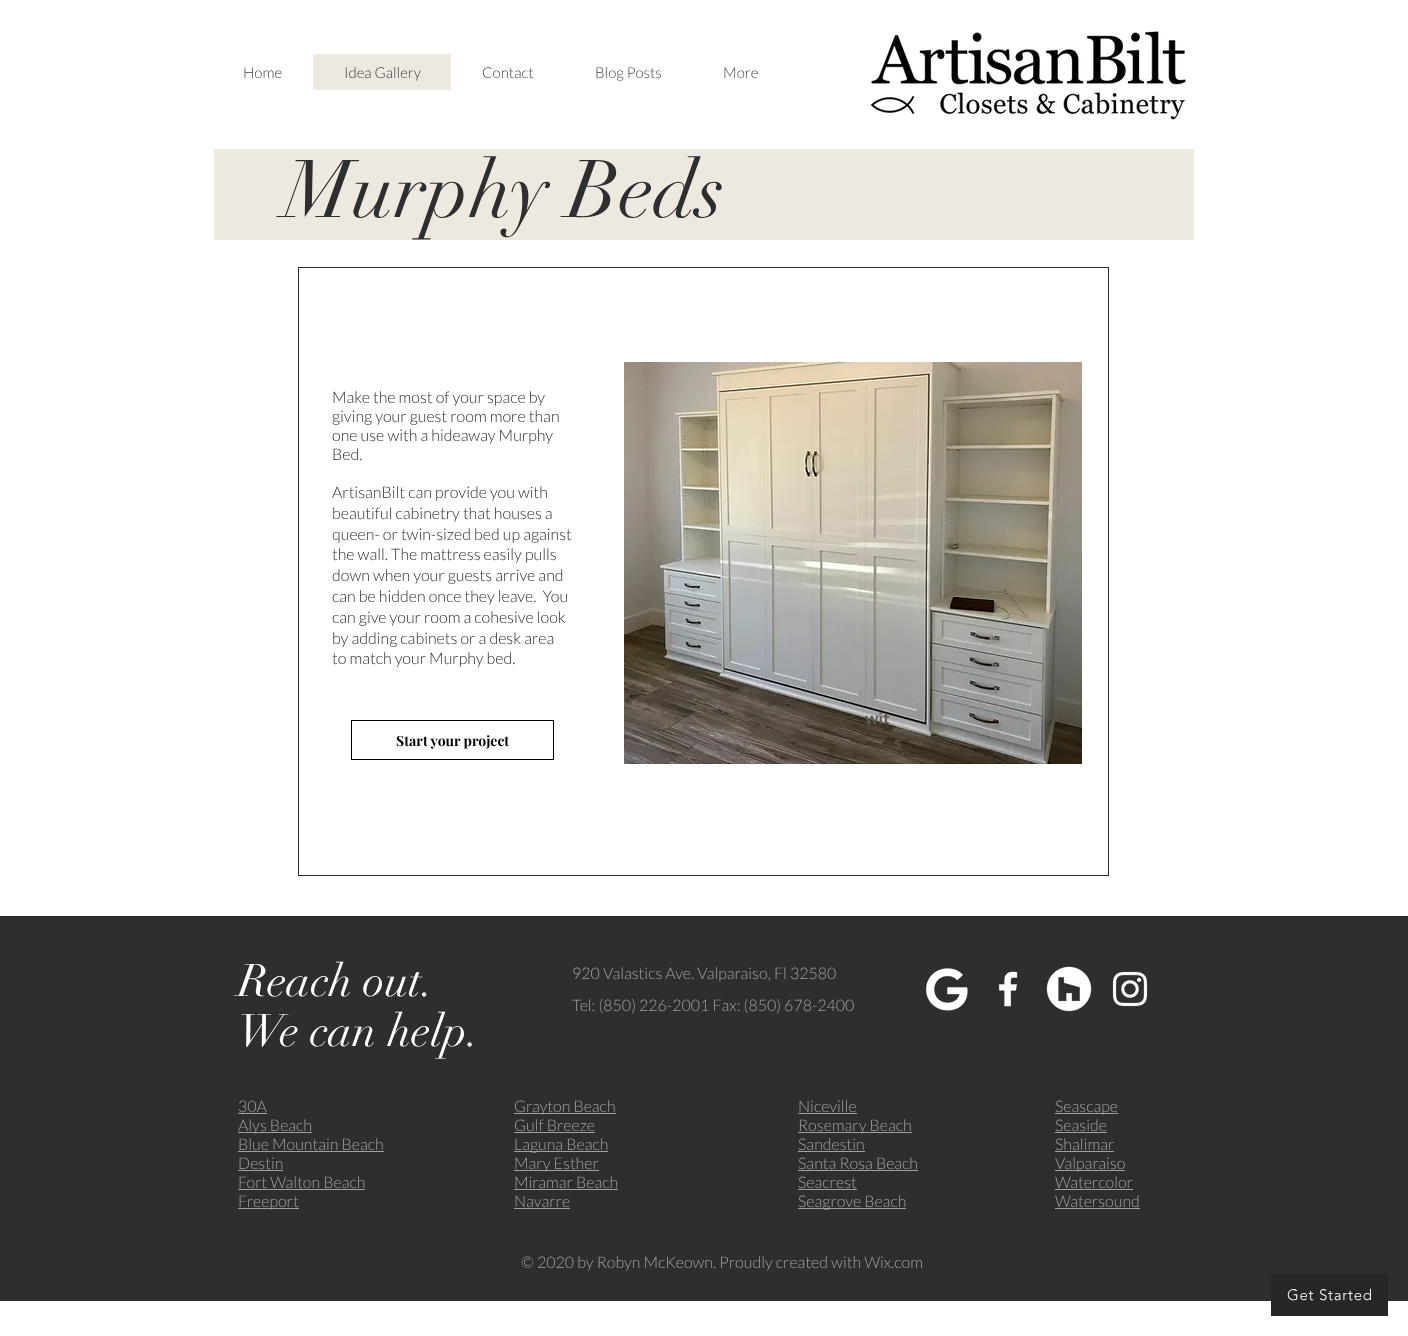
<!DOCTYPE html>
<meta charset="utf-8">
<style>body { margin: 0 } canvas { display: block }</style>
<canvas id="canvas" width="1408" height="1336"></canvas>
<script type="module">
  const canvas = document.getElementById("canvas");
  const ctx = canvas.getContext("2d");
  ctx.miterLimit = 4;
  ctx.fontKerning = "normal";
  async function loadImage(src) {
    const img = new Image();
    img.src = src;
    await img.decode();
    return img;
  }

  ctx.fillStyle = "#ffffff";
  ctx.fillRect(0, 0, 1408, 1336);
  ctx.font = "300 15px Lato";
  ctx.fillStyle = "#444444";
  ctx.fillText("Home", 243, 78);
  ctx.fillStyle = "#ede9e1";
  ctx.fillRect(313, 54, 138, 36);
  ctx.fillStyle = "#444444";
  ctx.fillText("Idea Gallery", 344, 78);
  ctx.fillText("Contact", 482, 78);
  ctx.fillText("Blog Posts", 595, 78);
  ctx.fillText("More", 723, 78);
  ctx.drawImage(await loadImage("img1.png"), 870, 31, 316, 89);
  ctx.fillStyle = "#ede9e1";
  ctx.fillRect(214, 149, 980, 91);
  ctx.font = "80px didot";
  ctx.fillStyle = "#2f2e2e";
  ctx.fillText("Murphy Beds", 284, 217);
  ctx.strokeStyle = "#2f2e2e";
  ctx.strokeRect(298.5, 267.5, 810, 608);
  ctx.font = "300 16px Lato";
  ctx.fillText("Make the most of your space by", 332, 403);
  ctx.fillText("giving your guest room more than", 332, 422);
  ctx.fillText("one use with a hideaway Murphy", 332, 441);
  ctx.fillText("Bed.", 332, 460);
  ctx.fillText("ArtisanBilt can provide you with", 332, 498);
  ctx.fillText("beautiful cabinetry that houses a", 332, 519);
  ctx.fillText("queen- or twin-sized bed up against", 332, 540);
  ctx.fillText("the wall. The mattress easily pulls", 332, 560);
  ctx.fillText("down when your guests arrive and", 332, 581);
  ctx.fillText("can be hidden once they leave.  You", 332, 602);
  ctx.fillText("can give your room a cohesive look", 332, 623);
  ctx.fillText("by adding cabinets or a desk area", 332, 644);
  ctx.fillText("to match your Murphy bed.", 332, 664);
  ctx.strokeStyle = "#000000";
  ctx.strokeRect(351.5, 720.5, 202, 39);
  ctx.font = "bold 14px Playfair Display";
  ctx.fillStyle = "#000000";
  ctx.fillText("Start your project", 396, 746);
  ctx.drawImage(await loadImage("img2.png"), 624, 362, 458, 402);
  ctx.font = "900 17px 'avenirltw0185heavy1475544'";
  ctx.fillStyle = "#625a50";
  ctx.fillText("wit", 865, 724);
  ctx.fillStyle = "#5a5146";
  ctx.fillText("s", 894, 748);
  ctx.fillStyle = "#2f2e2e";
  ctx.fillRect(0, 916, 1408, 385);
  ctx.font = "45px didot";
  ctx.fillStyle = "#ffffff";
  ctx.fillText("Reach out.", 238, 996);
  ctx.fillText("We can help.", 238, 1046);
  ctx.font = "300 16px Lato";
  ctx.fillStyle = "#a0a09f";
  ctx.fillText("920 Valastics Ave. Valparaiso, Fl 32580", 572, 979);
  ctx.fillText("Tel: (850) 226-2001 Fax: (850) 678-2400", 572, 1011);
  ctx.drawImage(await loadImage("img3.png"), 926, 968, 42, 43);
  ctx.drawImage(await loadImage("img4.png"), 998, 971, 20, 36);
  ctx.drawImage(await loadImage("img5.png"), 1046, 966, 46, 46);
  ctx.drawImage(await loadImage("img6.png"), 1112, 971, 36, 36);
  ctx.fillText("30A", 238, 1112);
  ctx.fillRect(238, 1113, 29, 1);
  ctx.fillRect(238, 1132, 74, 1);
  ctx.fillText("Alys Beach", 238, 1131);
  ctx.fillText("Blue Mountain Beach", 238, 1150);
  ctx.fillRect(238, 1151, 146, 1);
  ctx.fillText("Destin", 238, 1169);
  ctx.fillRect(238, 1170, 45, 1);
  ctx.fillText("Fort Walton Beach", 238, 1188);
  ctx.fillRect(238, 1189, 127, 1);
  ctx.fillRect(238, 1208, 61, 1);
  ctx.fillText("Freeport", 238, 1207);
  ctx.fillRect(514, 1113, 102, 1);
  ctx.fillText("Grayton Beach", 514, 1112);
  ctx.fillText("Gulf Breeze", 514, 1131);
  ctx.fillRect(514, 1132, 81, 1);
  ctx.fillRect(514, 1151, 94, 1);
  ctx.fillText("Laguna Beach", 514, 1150);
  ctx.fillRect(514, 1170, 85, 1);
  ctx.fillText("Mary Esther", 514, 1169);
  ctx.fillText("Miramar Beach", 514, 1188);
  ctx.fillRect(514, 1189, 104, 1);
  ctx.fillText("Navarre", 514, 1207);
  ctx.fillRect(514, 1208, 56, 1);
  ctx.fillText("Niceville", 798, 1112);
  ctx.fillRect(798, 1113, 59, 1);
  ctx.fillRect(798, 1132, 114, 1);
  ctx.fillText("Rosemary Beach", 798, 1131);
  ctx.fillText("Sandestin", 798, 1150);
  ctx.fillRect(798, 1151, 67, 1);
  ctx.fillText("Santa Rosa Beach", 798, 1169);
  ctx.fillRect(798, 1170, 120, 1);
  ctx.fillText("Seacrest", 798, 1188);
  ctx.fillRect(798, 1189, 59, 1);
  ctx.fillRect(798, 1208, 108, 1);
  ctx.fillText("Seagrove Beach", 798, 1207);
  ctx.fillRect(1055, 1113, 63, 1);
  ctx.fillText("Seascape", 1055, 1112);
  ctx.fillText("Seaside", 1055, 1131);
  ctx.fillRect(1055, 1132, 52, 1);
  ctx.fillText("Shalimar", 1055, 1150);
  ctx.fillRect(1055, 1151, 59, 1);
  ctx.fillRect(1055, 1170, 70, 1);
  ctx.fillText("Valparaiso", 1055, 1169);
  ctx.fillText("Watercolor", 1055, 1188);
  ctx.fillRect(1055, 1189, 78, 1);
  ctx.fillText("Watersound", 1055, 1207);
  ctx.fillRect(1055, 1208, 85, 1);
  ctx.fillText("© 2020 by Robyn McKeown. Proudly created with Wix.com", 521, 1268);
  ctx.fillStyle = "#282626";
  ctx.fillRect(1271, 1274, 117, 42);
  ctx.letterSpacing = "0.75px";
  ctx.font = "300 15px 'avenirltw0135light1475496'";
  ctx.fillStyle = "#ffffff";
  ctx.fillText("Get Started", 1287, 1300);
</script>
